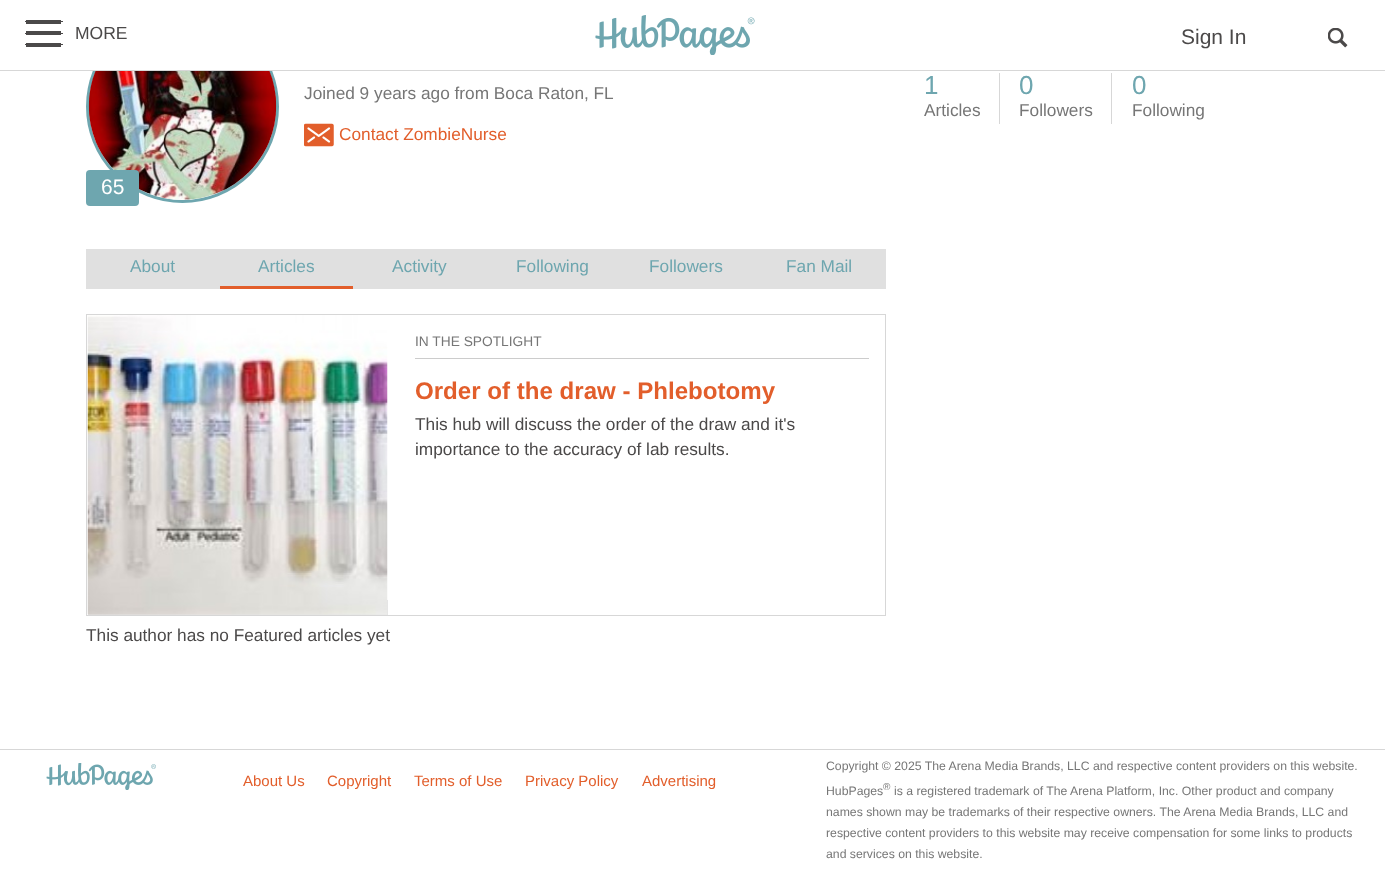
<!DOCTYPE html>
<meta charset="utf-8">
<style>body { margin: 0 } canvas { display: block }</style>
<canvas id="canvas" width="1385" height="871"></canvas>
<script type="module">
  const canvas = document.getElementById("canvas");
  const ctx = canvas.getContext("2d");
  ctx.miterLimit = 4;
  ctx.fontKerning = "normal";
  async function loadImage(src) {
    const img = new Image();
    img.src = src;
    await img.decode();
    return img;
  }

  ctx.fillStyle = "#ffffff";
  ctx.fillRect(0, 0, 1385, 871);
  ctx.beginPath();
  ctx.arc(182.5, 106.5, 95, 0, Math.PI * 2);
  ctx.strokeStyle = "#6ea6af";
  ctx.lineWidth = 3;
  ctx.stroke();
  ctx.fillRect(93, 10, 179, 60);
  ctx.fillStyle = "#d7d7d7";
  ctx.fillRect(0, 70, 1385, 1);
  ctx.fillStyle = "#4b4949";
  ctx.fillRect(59, 21, 4, 1);
  ctx.fillRect(26, 20, 35, 4);
  ctx.fillRect(25, 21, 4, 1);
  ctx.fillRect(59, 33, 4, 1);
  ctx.fillRect(26, 31, 35, 4);
  ctx.fillRect(25, 33, 4, 1);
  ctx.fillRect(59, 44, 4, 1);
  ctx.fillRect(26, 43, 35, 4);
  ctx.fillRect(25, 44, 4, 1);
  ctx.font = "17.5px Liberation Sans";
  ctx.fillText("MORE", 75, 39);
  ctx.drawImage(await loadImage("img1.png"), 595, 15, 160, 40);
  ctx.font = "21px Liberation Sans";
  ctx.fillText("Sign In", 1181, 44);
  ctx.drawImage(await loadImage("img2.png"), 1328, 28, 20, 20);
  ctx.font = "17.25px Liberation Sans";
  ctx.fillStyle = "#767676";
  ctx.fillText("Joined 9 years ago from Boca Raton, FL", 304, 99);
  ctx.drawImage(await loadImage("img3.png"), 304, 123, 30, 24);
  ctx.fillStyle = "#e25e2b";
  ctx.fillText("Contact ZombieNurse", 339, 140);
  ctx.drawImage(await loadImage("img4.png"), 88, 71, 189, 129);
  ctx.fillStyle = "#6ea6af";
  ctx.beginPath();
  ctx.roundRect(86, 170, 53, 36, 4);
  ctx.fill();
  ctx.font = "21px Liberation Sans";
  ctx.fillStyle = "#ffffff";
  ctx.fillText("65", 101, 194);
  ctx.fillStyle = "#d7d7d7";
  ctx.fillRect(999, 73, 1, 51);
  ctx.font = "26px Liberation Sans";
  ctx.fillStyle = "#6ea6af";
  ctx.fillText("1", 924, 94);
  ctx.font = "17.25px Liberation Sans";
  ctx.fillStyle = "#767676";
  ctx.fillText("Articles", 924, 116);
  ctx.fillStyle = "#d7d7d7";
  ctx.fillRect(1111, 73, 1, 51);
  ctx.font = "26px Liberation Sans";
  ctx.fillStyle = "#6ea6af";
  ctx.fillText("0", 1019, 94);
  ctx.font = "17.25px Liberation Sans";
  ctx.fillStyle = "#767676";
  ctx.fillText("Followers", 1019, 116);
  ctx.font = "26px Liberation Sans";
  ctx.fillStyle = "#6ea6af";
  ctx.fillText("0", 1132, 94);
  ctx.font = "17.25px Liberation Sans";
  ctx.fillStyle = "#767676";
  ctx.fillText("Following", 1132, 116);
  ctx.fillStyle = "#e0e0e0";
  ctx.fillRect(86, 249, 800, 40);
  ctx.fillStyle = "#6ea6af";
  ctx.fillText("About", 130, 272);
  ctx.fillStyle = "#e25e2b";
  ctx.fillRect(220, 286, 133, 3);
  ctx.fillStyle = "#6ea6af";
  ctx.fillText("Articles", 258, 272);
  ctx.fillText("Activity", 392, 272);
  ctx.fillText("Following", 516, 272);
  ctx.fillText("Followers", 649, 272);
  ctx.fillText("Fan Mail", 786, 272);
  ctx.strokeStyle = "#d7d7d7";
  ctx.lineWidth = 1;
  ctx.strokeRect(86.5, 314.5, 799, 301);
  ctx.fillStyle = "#e5e5e5";
  ctx.fillRect(88, 600, 300, 15);
  ctx.drawImage(await loadImage("img5.png"), 87, 315, 301, 300);
  ctx.fillStyle = "#cccccc";
  ctx.fillRect(415, 358, 454, 1);
  ctx.font = "13.75px Liberation Sans";
  ctx.fillStyle = "#767676";
  ctx.fillText("IN THE SPOTLIGHT", 415, 346);
  ctx.font = "bold 24.1px Liberation Sans";
  ctx.fillStyle = "#e25e2b";
  ctx.fillText("Order of the draw - Phlebotomy", 415, 399);
  ctx.font = "17.25px Liberation Sans";
  ctx.fillStyle = "#4b4949";
  ctx.fillText("This hub will discuss the order of the draw and it's", 415, 430);
  ctx.fillText("importance to the accuracy of lab results.", 415, 455);
  ctx.fillText("This author has no Featured articles yet", 86, 641);
  ctx.fillStyle = "#d7d7d7";
  ctx.fillRect(0, 749, 1385, 1);
  ctx.drawImage(await loadImage("img6.png"), 46, 763, 110, 27);
  ctx.font = "15px Liberation Sans";
  ctx.fillStyle = "#e25e2b";
  ctx.fillText("About Us", 243, 786);
  ctx.fillText("Copyright", 327, 786);
  ctx.fillText("Terms of Use", 414, 786);
  ctx.fillText("Privacy Policy", 525, 786);
  ctx.fillText("Advertising", 642, 786);
  ctx.font = "12.25px Liberation Sans";
  ctx.fillStyle = "#767676";
  ctx.fillText("Copyright © 2025 The Arena Media Brands, LLC and respective content providers on this website.", 826, 770);
  ctx.fillText("HubPages", 826, 795);
  ctx.font = "10px Liberation Sans";
  ctx.fillText("®", 883, 790);
  ctx.font = "12.25px Liberation Sans";
  ctx.fillText("is a registered trademark of The Arena Platform, Inc. Other product and company", 894, 795);
  ctx.fillText("names shown may be trademarks of their respective owners. The Arena Media Brands, LLC and", 826, 816);
  ctx.fillText("respective content providers to this website may receive compensation for some links to products", 826, 837);
  ctx.fillText("and services on this website.", 826, 858);
</script>
